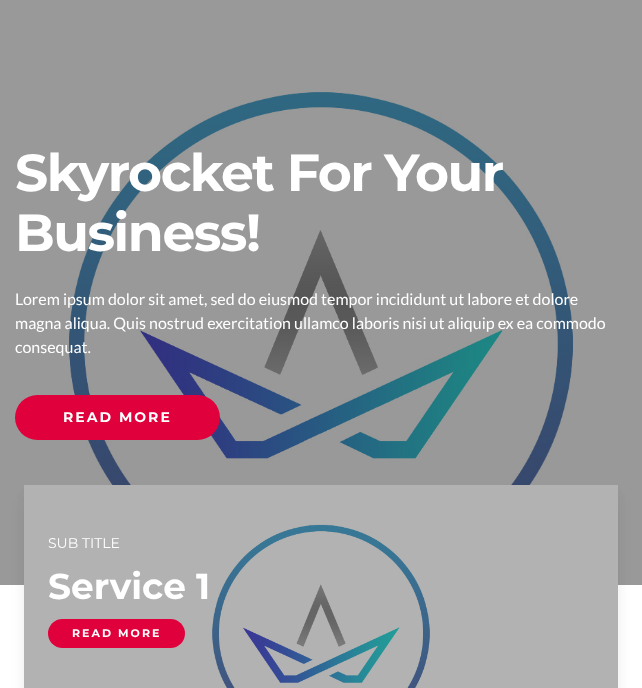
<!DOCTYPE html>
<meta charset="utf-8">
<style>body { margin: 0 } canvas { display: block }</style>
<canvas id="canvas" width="642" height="688"></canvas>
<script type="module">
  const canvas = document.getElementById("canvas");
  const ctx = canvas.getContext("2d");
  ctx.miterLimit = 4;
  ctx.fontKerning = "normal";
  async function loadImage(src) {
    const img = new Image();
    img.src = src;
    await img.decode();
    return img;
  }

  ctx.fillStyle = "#ffffff";
  ctx.fillRect(0, 0, 642, 688);
  ctx.drawImage(await loadImage("img1.png"), 0, 0, 642, 585);
  ctx.letterSpacing = "-1.5px";
  ctx.font = "bold 52px Montserrat";
  ctx.fillText("Skyrocket For Your", 15, 191);
  ctx.fillText("Business!", 15, 251);
  ctx.letterSpacing = "0px";
  ctx.font = "16px Lato";
  ctx.fillText("Lorem ipsum dolor sit amet, sed do eiusmod tempor incididunt ut labore et dolore", 15, 305);
  ctx.fillText("magna aliqua. Quis nostrud exercitation ullamco laboris nisi ut aliquip ex ea commodo", 15, 329);
  ctx.fillText("consequat.", 15, 353);
  ctx.fillStyle = "#e0003b";
  ctx.beginPath();
  ctx.roundRect(15, 395, 205, 45, 22.5);
  ctx.fill();
  ctx.letterSpacing = "2px";
  ctx.font = "bold 14px Montserrat";
  ctx.fillStyle = "#ffffff";
  ctx.fillText("READ MORE", 63, 422);
  ctx.fillStyle = "rgba(32, 32, 32, 0.05)";
  ctx.filter = "blur(4px)";
  ctx.beginPath();
  ctx.rect(24, 493, 594, 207);
  ctx.fill();
  ctx.filter = "none";
  ctx.filter = "blur(8px)";
  ctx.beginPath();
  ctx.rect(24, 501, 594, 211);
  ctx.fill();
  ctx.filter = "none";
  ctx.drawImage(await loadImage("img2.png"), 24, 485, 594, 203);
  ctx.letterSpacing = "0px";
  ctx.font = "14px Montserrat";
  ctx.fillStyle = "#ffffff";
  ctx.fillText("SUB TITLE", 48, 548);
  ctx.font = "bold 36px Montserrat";
  ctx.fillText("Service 1", 48, 599);
  ctx.fillStyle = "#e0003b";
  ctx.beginPath();
  ctx.roundRect(48, 619, 137, 29, 14.5);
  ctx.fill();
  ctx.letterSpacing = "2px";
  ctx.font = "bold 11px Montserrat";
  ctx.fillStyle = "#ffffff";
  ctx.fillText("READ MORE", 72, 637);
</script>
